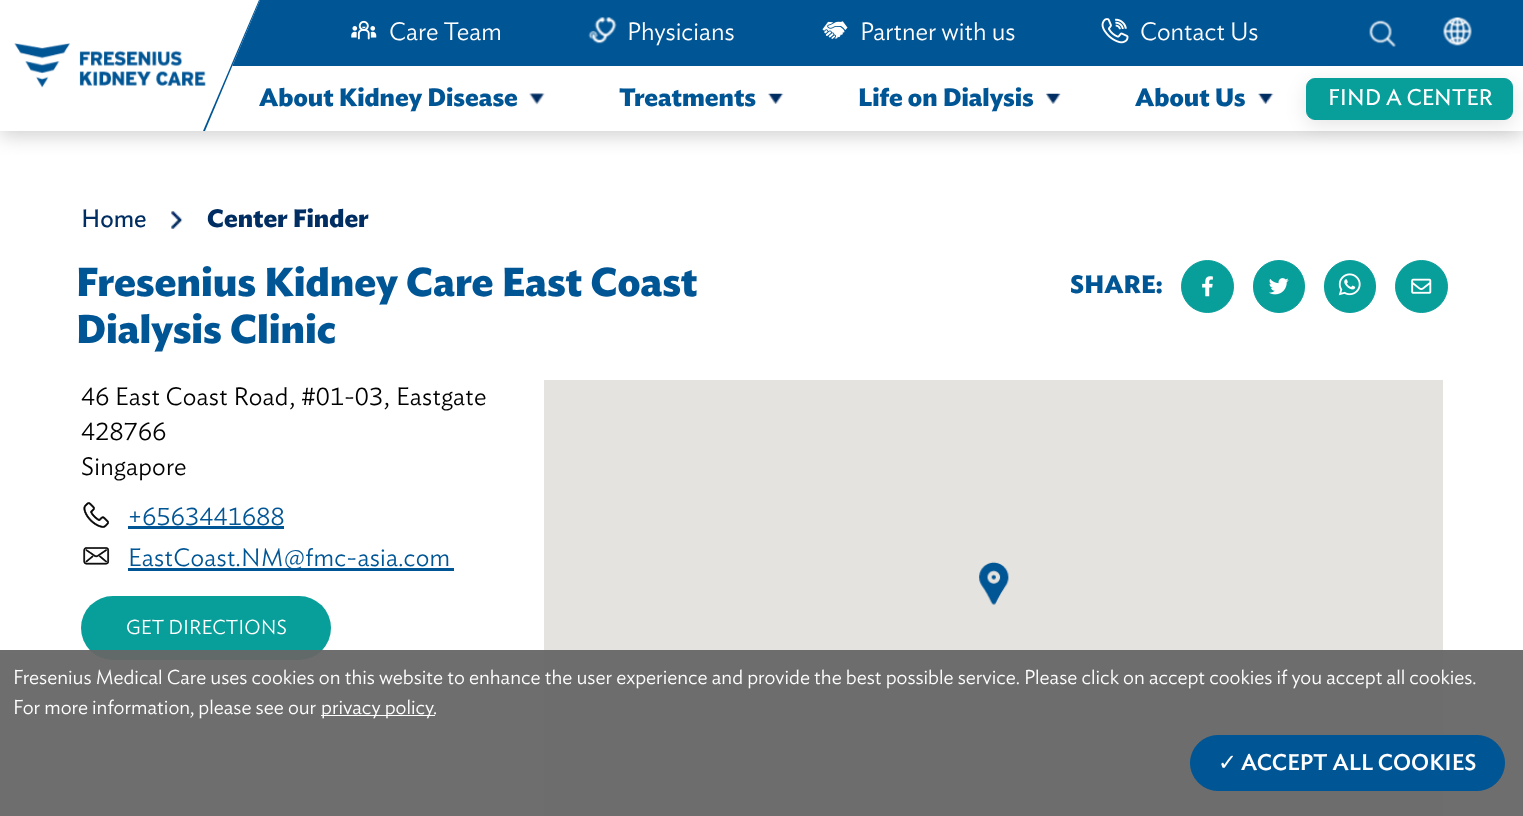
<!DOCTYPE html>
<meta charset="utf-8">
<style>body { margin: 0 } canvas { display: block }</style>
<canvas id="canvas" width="1523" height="816"></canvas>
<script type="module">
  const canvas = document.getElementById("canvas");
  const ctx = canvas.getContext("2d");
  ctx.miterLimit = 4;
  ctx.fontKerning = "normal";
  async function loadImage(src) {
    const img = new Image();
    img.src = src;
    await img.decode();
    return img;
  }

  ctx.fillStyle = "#ffffff";
  ctx.fillRect(0, 0, 1523, 816);
  ctx.save();
  ctx.beginPath();
  ctx.rect(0, 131, 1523, 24);
  ctx.clip();
  ctx.fillStyle = "#d1d1d1";
  ctx.filter = "blur(9.5px)";
  ctx.beginPath();
  ctx.rect(0, 5, 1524, 131);
  ctx.fill();
  ctx.filter = "none";
  ctx.restore();
  ctx.fillStyle = "#005595";
  ctx.fillRect(232, 0, 1291, 66);
  ctx.fillStyle = "#ffffff";
  ctx.beginPath();
  ctx.moveTo(0, 0);
  ctx.lineTo(260, 0);
  ctx.lineTo(205, 131);
  ctx.lineTo(-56, 131);
  ctx.closePath();
  ctx.fill();
  ctx.fillStyle = "#005595";
  ctx.beginPath();
  ctx.moveTo(259, 0);
  ctx.lineTo(260, 0);
  ctx.lineTo(205, 131);
  ctx.lineTo(203, 131);
  ctx.closePath();
  ctx.fill();
  ctx.drawImage(await loadImage("img1.png"), 14, 43, 192, 45);
  ctx.drawImage(await loadImage("img2.png"), 351, 20, 26, 20);
  ctx.font = "300 25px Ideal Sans";
  ctx.fillStyle = "#ffffff";
  ctx.fillText("Care Team", 389, 40);
  ctx.drawImage(await loadImage("img3.png"), 588, 17, 29, 27);
  ctx.fillText("Physicians", 627, 40);
  ctx.drawImage(await loadImage("img4.png"), 822, 21, 26, 18);
  ctx.fillText("Partner with us", 860, 40);
  ctx.drawImage(await loadImage("img5.png"), 1101, 18, 28, 26);
  ctx.fillText("Contact Us", 1140, 40);
  ctx.drawImage(await loadImage("img6.png"), 1369, 20, 27, 27);
  ctx.drawImage(await loadImage("img7.png"), 1443, 17, 29, 29);
  ctx.font = "bold 25px Ideal Sans";
  ctx.fillStyle = "#005595";
  ctx.fillText("About Kidney Disease", 259, 106);
  ctx.drawImage(await loadImage("img8.png"), 529, 93, 16, 12);
  ctx.fillText("Treatments", 619, 106);
  ctx.drawImage(await loadImage("img9.png"), 768, 93, 16, 11);
  ctx.fillText("Life on Dialysis", 858, 106);
  ctx.drawImage(await loadImage("img10.png"), 1045, 93, 16, 11);
  ctx.fillText("About Us", 1135, 106);
  ctx.drawImage(await loadImage("img11.png"), 1258, 93, 16, 11);
  ctx.fillStyle = "rgba(0, 0, 0, 0.1)";
  ctx.filter = "blur(9.5px)";
  ctx.beginPath();
  ctx.roundRect(1306, 83, 207, 42, 9);
  ctx.fill();
  ctx.filter = "none";
  ctx.fillStyle = "#089e9a";
  ctx.beginPath();
  ctx.roundRect(1306.5, 78.5, 206, 41, 8.5);
  ctx.fill();
  ctx.strokeStyle = "#089e9a";
  ctx.stroke();
  ctx.font = "22.5px Ideal Sans";
  ctx.fillStyle = "#ffffff";
  ctx.fillText("FIND A CENTER", 1328, 105);
  ctx.fillStyle = "#089e9a";
  ctx.beginPath();
  ctx.roundRect(81, 596, 250, 64, 32);
  ctx.fill();
  ctx.fillStyle = "#e5e3df";
  ctx.fillRect(544, 380, 899, 436);
  ctx.fillStyle = "rgba(102, 102, 102, 0.95)";
  ctx.fillRect(0, 650, 1523, 166);
  ctx.font = "300 20px Ideal Sans";
  ctx.fillStyle = "#ffffff";
  ctx.fillText("Fresenius Medical Care uses cookies on this website to enhance the user experience and provide the best possible service. Please click on accept cookies if you accept all cookies.", 13, 684);
  ctx.fillText("For more information, please see our", 13, 714);
  ctx.fillRect(321, 715, 114, 1);
  ctx.fillText("privacy policy.", 321, 714);
  ctx.fillStyle = "#005595";
  ctx.beginPath();
  ctx.roundRect(1190.5, 735.5, 314, 55, 27.5);
  ctx.fill();
  ctx.strokeStyle = "#005595";
  ctx.stroke();
  ctx.font = "22.5px DejaVu Sans";
  ctx.fillStyle = "#ffffff";
  ctx.fillText("✓", 1218, 770);
  ctx.font = "500 22.5px Ideal Sans";
  ctx.fillText("ACCEPT ALL COOKIES", 1241, 770);
  ctx.font = "25px Ideal Sans";
  ctx.fillStyle = "#002d62";
  ctx.fillText("Home", 81, 227);
  ctx.drawImage(await loadImage("img12.png"), 171, 211, 12, 18);
  ctx.font = "bold 25px Ideal Sans";
  ctx.fillText("Center Finder", 207, 227);
  ctx.font = "bold 40px Ideal Sans";
  ctx.fillStyle = "#005595";
  ctx.fillText("Fresenius Kidney Care East Coast", 76, 296);
  ctx.fillText("Dialysis Clinic", 76, 343);
  ctx.font = "bold 25px Ideal Sans";
  ctx.fillText("SHARE:", 1070, 293);
  ctx.fillStyle = "#089e9a";
  ctx.beginPath();
  ctx.arc(1207.5, 286.5, 26, 0, Math.PI * 2);
  ctx.fill();
  ctx.strokeStyle = "#089e9a";
  ctx.stroke();
  ctx.drawImage(await loadImage("img13.png"), 1202, 276, 11, 21);
  ctx.beginPath();
  ctx.roundRect(1253.5, 260.5, 51, 52, 25.5);
  ctx.fill();
  ctx.stroke();
  ctx.drawImage(await loadImage("img14.png"), 1269, 278, 20, 17);
  ctx.beginPath();
  ctx.roundRect(1324.5, 260.5, 51, 52, 25.5);
  ctx.fill();
  ctx.stroke();
  ctx.drawImage(await loadImage("img15.png"), 1338, 273, 23, 23);
  ctx.beginPath();
  ctx.arc(1421.5, 286.5, 26, 0, Math.PI * 2);
  ctx.fill();
  ctx.stroke();
  ctx.drawImage(await loadImage("img16.png"), 1411, 278, 21, 16);
  ctx.letterSpacing = "0.25px";
  ctx.font = "300 25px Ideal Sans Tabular";
  ctx.fillStyle = "#000000";
  ctx.fillText("46 East Coast Road, #01-03, Eastgate", 81, 405);
  ctx.fillText("428766", 81, 440);
  ctx.font = "300 25px Ideal Sans";
  ctx.fillText("Singapore", 81, 475);
  ctx.drawImage(await loadImage("img17.png"), 83, 502, 26, 26);
  ctx.font = "300 25px Ideal Sans Tabular";
  ctx.fillStyle = "#005595";
  ctx.fillText("+6563441688", 128, 525);
  ctx.fillRect(128, 526, 156, 3);
  ctx.drawImage(await loadImage("img18.png"), 83, 547, 27, 18);
  ctx.fillRect(128, 568, 326, 3);
  ctx.font = "300 25px Ideal Sans";
  ctx.fillText("EastCoast.NM@fmc-asia.com", 128, 566);
  ctx.letterSpacing = "0px";
  ctx.font = "300 20px Ideal Sans";
  ctx.fillStyle = "#ffffff";
  ctx.fillText("GET DIRECTIONS", 126, 634);
  ctx.drawImage(await loadImage("img19.png"), 979, 561, 30, 44);
</script>
